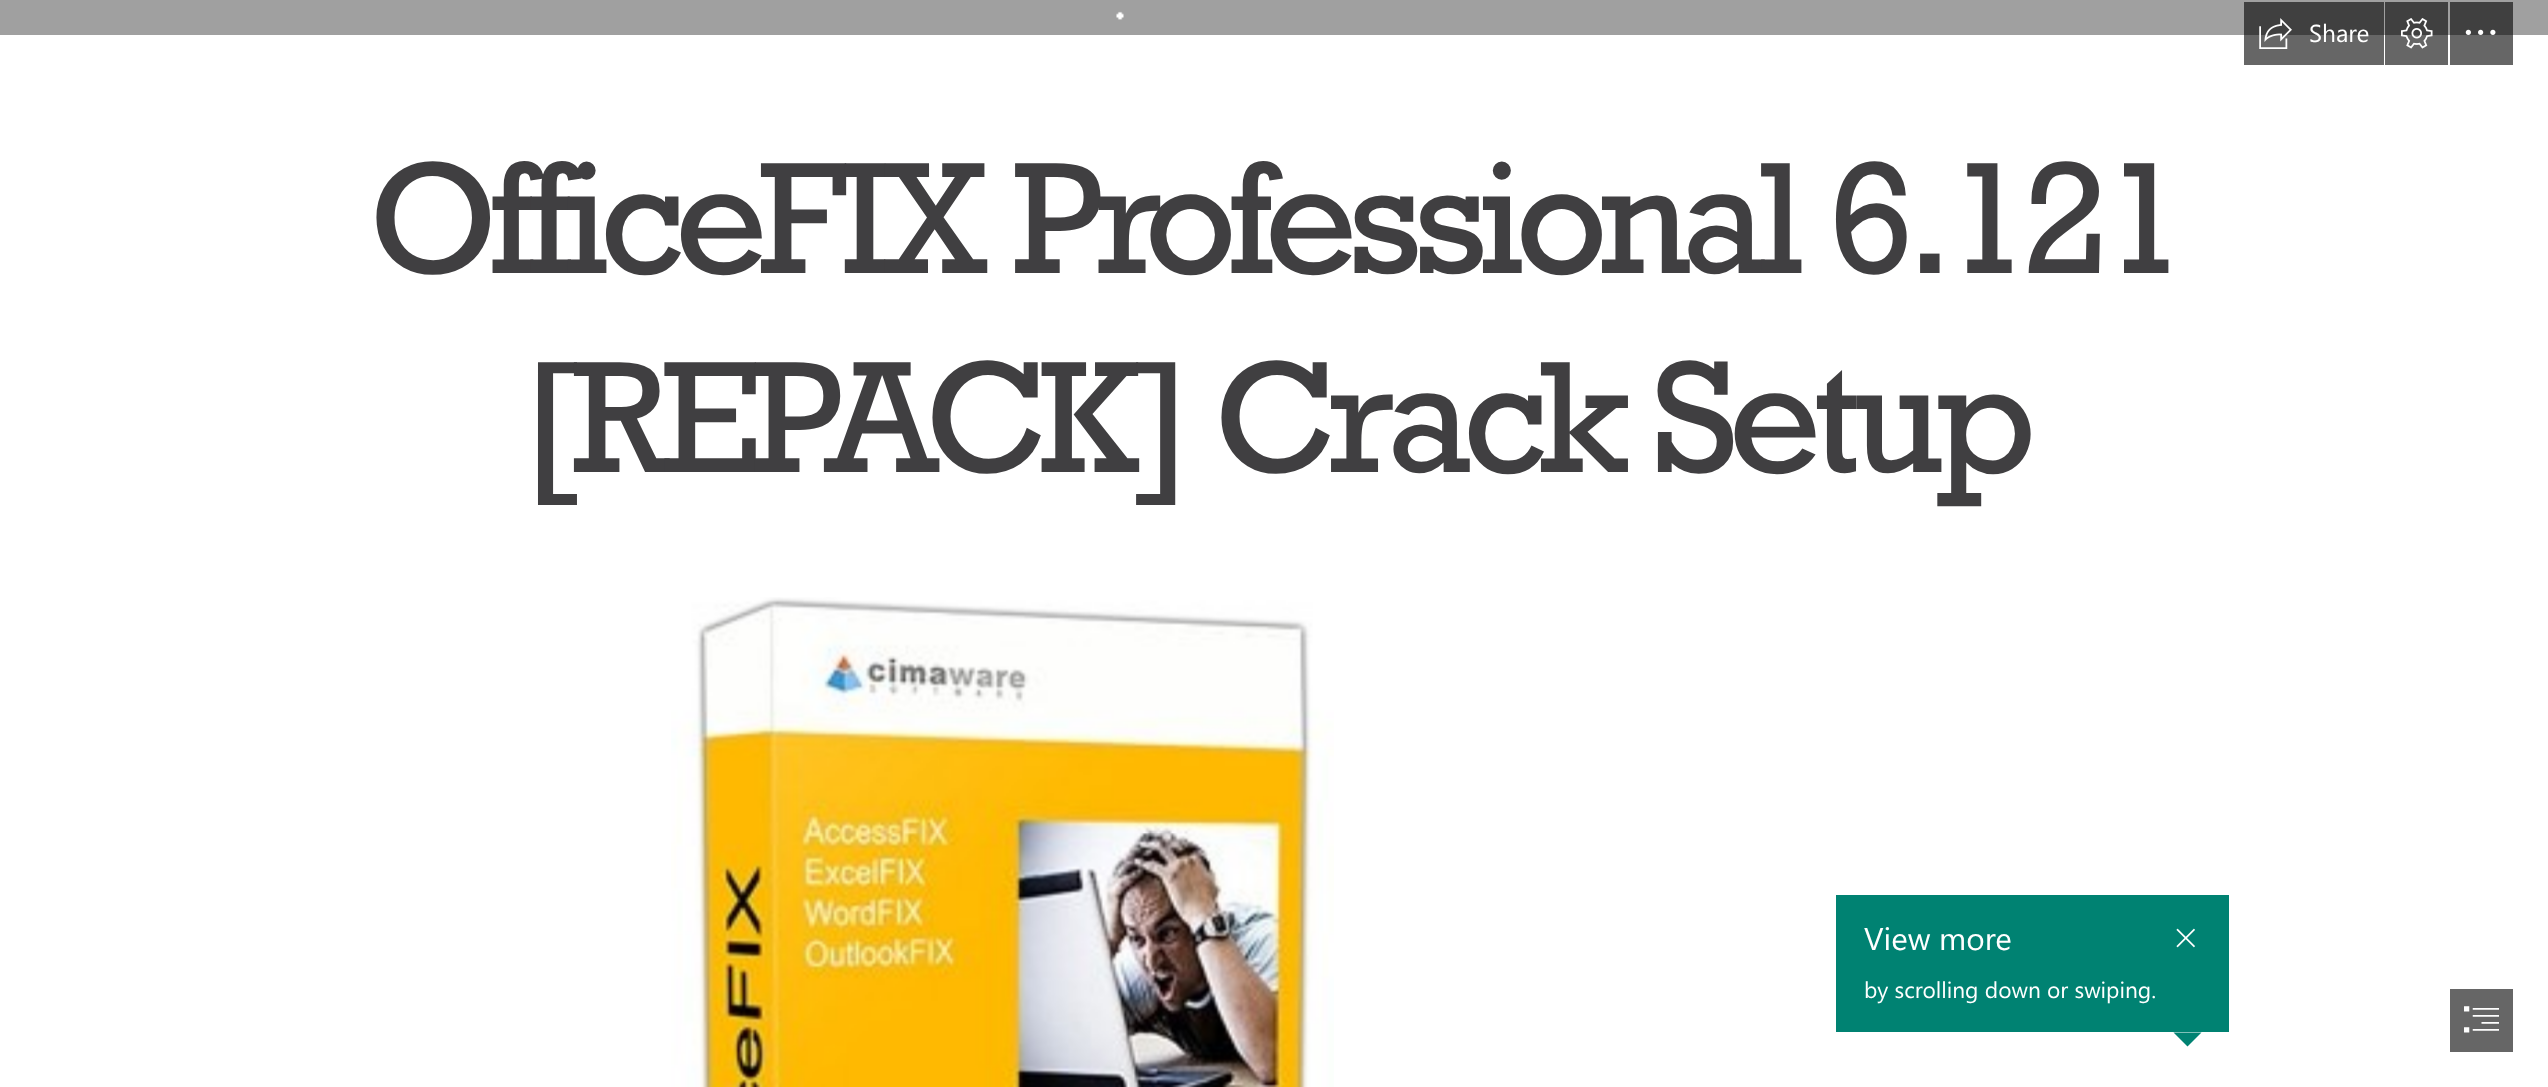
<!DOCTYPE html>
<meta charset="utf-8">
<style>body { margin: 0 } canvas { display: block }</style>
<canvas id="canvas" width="2548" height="1087"></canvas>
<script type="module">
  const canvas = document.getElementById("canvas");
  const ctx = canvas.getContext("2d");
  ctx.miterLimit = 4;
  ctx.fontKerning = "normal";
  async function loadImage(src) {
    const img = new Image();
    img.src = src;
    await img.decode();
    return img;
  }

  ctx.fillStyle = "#ffffff";
  ctx.fillRect(0, 0, 2548, 1087);
  ctx.fillStyle = "#a0a0a0";
  ctx.fillRect(0, 0, 2548, 35);
  ctx.fillStyle = "#404040";
  ctx.fillRect(2244, 2, 140, 33);
  ctx.fillStyle = "#666666";
  ctx.fillRect(2244, 35, 140, 30);
  ctx.drawImage(await loadImage("img1.png"), 2259, 18, 33, 31);
  ctx.font = "24.5px Segoe UI";
  ctx.fillStyle = "#ffffff";
  ctx.fillText("Share", 2309, 42);
  ctx.fillStyle = "#404040";
  ctx.fillRect(2385, 2, 63, 33);
  ctx.fillStyle = "#666666";
  ctx.fillRect(2385, 35, 63, 30);
  ctx.drawImage(await loadImage("img2.png"), 2401, 18, 32, 31);
  ctx.fillStyle = "#404040";
  ctx.fillRect(2450, 2, 63, 33);
  ctx.drawImage(await loadImage("img3.png"), 2465, 29, 31, 6);
  ctx.drawImage(await loadImage("img4.png"), 1116, 11, 8, 9);
  ctx.fillStyle = "#666666";
  ctx.fillRect(2450, 35, 63, 30);
  ctx.letterSpacing = "-9.3px";
  ctx.font = "149.25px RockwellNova";
  ctx.fillStyle = "#403f41";
  ctx.fillText("OfficeFIX Professional 6.121", 369, 273);
  ctx.fillText("[REPACK] Crack Setup", 521, 472);
  ctx.drawImage(await loadImage("img5.png"), 671, 597, 663, 490);
  ctx.fillStyle = "#008272";
  ctx.fillRect(1836, 895, 393, 137);
  ctx.letterSpacing = "0px";
  ctx.font = "31.5px Segoe UI";
  ctx.fillStyle = "#ffffff";
  ctx.fillText("View more", 1864, 950);
  ctx.font = "22.75px Segoe UI";
  ctx.fillText("by scrolling down or swiping.", 1864, 998);
  ctx.drawImage(await loadImage("img6.png"), 2176, 928, 19, 20);
  ctx.fillStyle = "#008272";
  ctx.beginPath();
  ctx.moveTo(2173.5, 1032.5);
  ctx.lineTo(2201.5, 1032.5);
  ctx.lineTo(2187.5, 1046.5);
  ctx.closePath();
  ctx.fill();
  ctx.fillStyle = "#666666";
  ctx.fillRect(2450, 989, 63, 63);
  ctx.drawImage(await loadImage("img7.png"), 2464, 1006, 35, 27);
</script>
